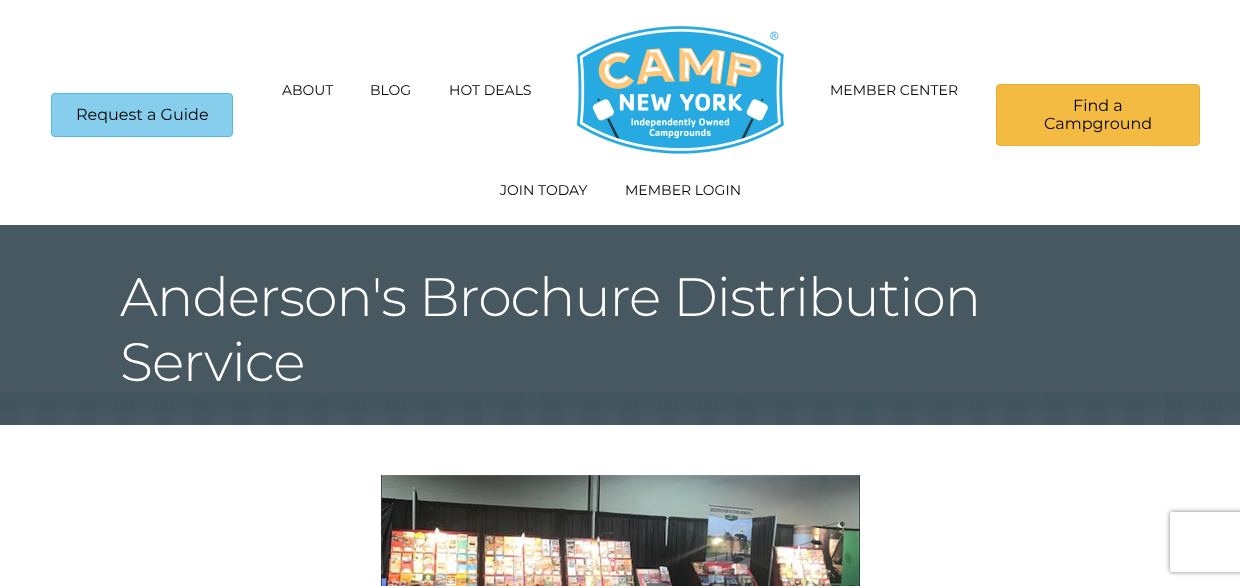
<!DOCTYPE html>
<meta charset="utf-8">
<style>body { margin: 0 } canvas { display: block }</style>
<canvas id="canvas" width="1240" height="586"></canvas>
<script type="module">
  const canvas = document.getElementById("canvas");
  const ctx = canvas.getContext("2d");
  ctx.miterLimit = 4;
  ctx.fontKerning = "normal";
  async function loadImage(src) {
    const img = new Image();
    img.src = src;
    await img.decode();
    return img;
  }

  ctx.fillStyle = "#ffffff";
  ctx.fillRect(0, 0, 1240, 586);
  ctx.fillStyle = "#86ceec";
  ctx.beginPath();
  ctx.roundRect(51.5, 93.5, 181, 43, 3.5);
  ctx.fill();
  ctx.strokeStyle = "#51b9e4";
  ctx.stroke();
  ctx.font = "16px Montserrat";
  ctx.fillStyle = "#000000";
  ctx.fillText("Request a Guide", 76, 120);
  ctx.font = "14px Montserrat";
  ctx.fillText("ABOUT", 282, 95);
  ctx.fillText("BLOG", 370, 95);
  ctx.fillText("HOT DEALS", 449, 95);
  ctx.drawImage(await loadImage("img1.png"), 576, 26, 208, 128);
  ctx.fillText("MEMBER CENTER", 830, 95);
  ctx.fillText("JOIN TODAY", 500, 195);
  ctx.fillText("MEMBER LOGIN", 625, 195);
  ctx.fillStyle = "#f3bb42";
  ctx.beginPath();
  ctx.roundRect(996.5, 84.5, 203, 61, 3.5);
  ctx.fill();
  ctx.strokeStyle = "#e7af36";
  ctx.stroke();
  ctx.font = "16px Montserrat";
  ctx.fillStyle = "#000000";
  ctx.fillText("Find a", 1073, 111);
  ctx.fillText("Campground", 1044, 129);
  ctx.drawImage(await loadImage("img2.png"), 0, 225, 1240, 200);
  ctx.letterSpacing = "-1px";
  ctx.font = "300 54px Montserrat";
  ctx.fillStyle = "#ffffff";
  ctx.fillText("Anderson's Brochure Distribution", 120, 316);
  ctx.fillText("Service", 120, 381);
  ctx.drawImage(await loadImage("img3.png"), 381, 475, 479, 111);
  ctx.save();
  ctx.beginPath();
  ctx.moveTo(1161, 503);
  ctx.lineTo(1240, 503);
  ctx.lineTo(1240, 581);
  ctx.lineTo(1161, 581);
  ctx.closePath();
  ctx.moveTo(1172, 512);
  ctx.lineTo(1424, 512);
  ctx.bezierCurveTo(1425, 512, 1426, 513, 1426, 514);
  ctx.lineTo(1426, 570);
  ctx.bezierCurveTo(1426, 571, 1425, 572, 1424, 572);
  ctx.lineTo(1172, 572);
  ctx.bezierCurveTo(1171, 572, 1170, 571, 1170, 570);
  ctx.lineTo(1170, 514);
  ctx.bezierCurveTo(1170, 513, 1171, 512, 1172, 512);
  ctx.closePath();
  ctx.clip("evenodd");
  ctx.fillStyle = "#808080";
  ctx.filter = "blur(2.5px)";
  ctx.beginPath();
  ctx.roundRect(1170, 512, 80, 60, 2);
  ctx.fill();
  ctx.filter = "none";
  ctx.restore();
</script>
